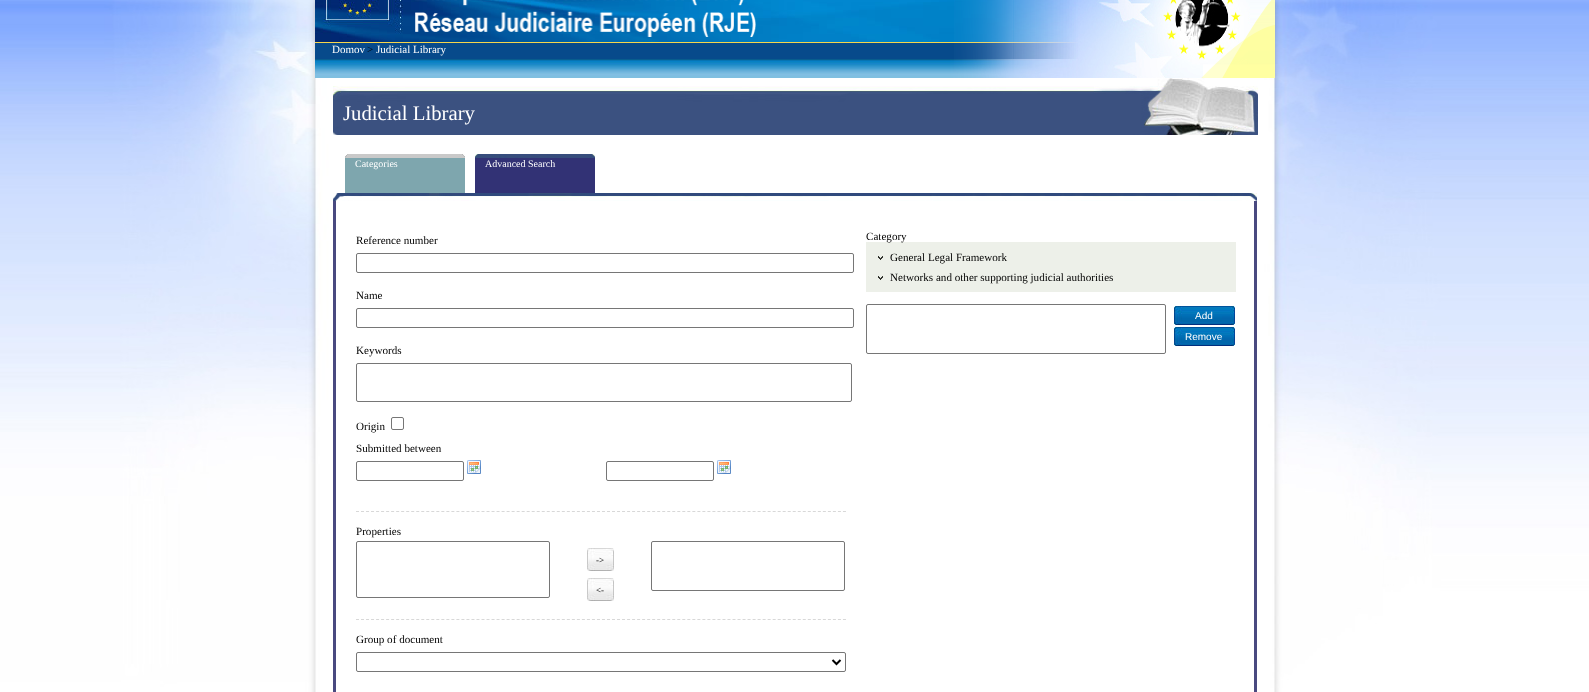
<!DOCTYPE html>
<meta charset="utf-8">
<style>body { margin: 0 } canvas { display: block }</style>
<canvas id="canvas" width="1589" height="692"></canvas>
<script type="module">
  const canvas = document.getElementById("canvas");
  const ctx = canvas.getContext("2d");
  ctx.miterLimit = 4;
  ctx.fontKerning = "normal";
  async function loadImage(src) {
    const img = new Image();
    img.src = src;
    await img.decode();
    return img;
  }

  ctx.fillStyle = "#ffffff";
  ctx.fillRect(0, 0, 1589, 692);
  ctx.drawImage(await loadImage("img1.png"), 0, 0, 1589, 692);
  ctx.drawImage(await loadImage("img2.png"), 315, 0, 763, 42);
  ctx.drawImage(await loadImage("img3.png"), 415, 0, 341, 37);
  ctx.fillStyle = "#074a8b";
  ctx.fillRect(315, 43, 763, 16);
  ctx.fillStyle = "#f6d54c";
  ctx.fillRect(315, 42, 763, 1);
  ctx.drawImage(await loadImage("img5.png"), 315, 59, 763, 19);
  ctx.drawImage(await loadImage("img4.png"), 954, 0, 321, 78);
  ctx.font = "11px Liberation Serif";
  ctx.fillStyle = "#ffffff";
  ctx.fillText("Domov", 332, 53);
  ctx.fillStyle = "#000000";
  ctx.fillText(">", 367, 53);
  ctx.fillStyle = "#ffffff";
  ctx.fillText("Judicial Library", 376, 53);
  ctx.drawImage(await loadImage("img6.png"), 333, 78, 925, 57);
  ctx.font = "20.75px Liberation Serif";
  ctx.fillText("Judicial Library", 343, 120);
  ctx.drawImage(await loadImage("img7.png"), 345, 154, 120, 4);
  ctx.drawImage(await loadImage("img8.png"), 475, 154, 120, 4);
  ctx.fillStyle = "#7ea6ae";
  ctx.fillRect(345, 158, 120, 35);
  ctx.font = "10px Liberation Serif";
  ctx.fillStyle = "#ffffff";
  ctx.fillText("Categories", 355, 167);
  ctx.fillStyle = "#323275";
  ctx.fillRect(475, 158, 120, 35);
  ctx.fillStyle = "#ffffff";
  ctx.fillText("Advanced Search", 485, 167);
  ctx.drawImage(await loadImage("img9.png"), 333, 193, 924, 8);
  ctx.fillStyle = "#494980";
  ctx.fillRect(1254, 201, 3, 491);
  ctx.fillRect(333, 201, 3, 491);
  ctx.font = "11.1px Liberation Serif";
  ctx.fillStyle = "#000000";
  ctx.fillText("Reference number", 356, 244);
  ctx.beginPath();
  ctx.roundRect(356.5, 253.5, 497, 19, 1.5);
  ctx.strokeStyle = "#767676";
  ctx.stroke();
  ctx.fillText("Name", 356, 299);
  ctx.beginPath();
  ctx.roundRect(356.5, 308.5, 497, 19, 1.5);
  ctx.stroke();
  ctx.fillText("Keywords", 356, 354);
  ctx.beginPath();
  ctx.roundRect(356.5, 363.5, 495, 38, 1.5);
  ctx.stroke();
  ctx.fillText("Origin", 356, 430);
  ctx.beginPath();
  ctx.roundRect(391.5, 417.5, 12, 12, 1.5);
  ctx.stroke();
  ctx.fillText("Submitted between", 356, 452);
  ctx.beginPath();
  ctx.roundRect(356.5, 461.5, 107, 19, 1.5);
  ctx.stroke();
  ctx.drawImage(await loadImage("img10.png"), 467, 460, 14, 14);
  ctx.beginPath();
  ctx.roundRect(606.5, 461.5, 107, 19, 1.5);
  ctx.stroke();
  ctx.drawImage(await loadImage("img10.png"), 717, 460, 14, 14);
  ctx.beginPath();
  ctx.moveTo(356, 511.5);
  ctx.lineTo(846, 511.5);
  ctx.strokeStyle = "#d8d8d8";
  ctx.setLineDash([3, 2.02]);
  ctx.stroke();
  ctx.fillText("Properties", 356, 535);
  ctx.beginPath();
  ctx.roundRect(356.5, 541.5, 193, 56, 1.5);
  ctx.strokeStyle = "#767676";
  ctx.setLineDash([]);
  ctx.stroke();
  ctx.drawImage(await loadImage("img11.png"), 587, 548, 27, 23);
  ctx.font = "9px Liberation Serif";
  ctx.fillText("->", 596, 563);
  ctx.drawImage(await loadImage("img11.png"), 587, 578, 27, 23);
  ctx.fillText("<-", 596, 593);
  ctx.beginPath();
  ctx.roundRect(651.5, 541.5, 193, 49, 1.5);
  ctx.stroke();
  ctx.beginPath();
  ctx.moveTo(356, 619.5);
  ctx.lineTo(846, 619.5);
  ctx.strokeStyle = "#d8d8d8";
  ctx.setLineDash([3, 2.02]);
  ctx.stroke();
  ctx.font = "11.1px Liberation Serif";
  ctx.fillText("Group of document", 356, 643);
  ctx.beginPath();
  ctx.roundRect(356.5, 652.5, 489, 19, 1.5);
  ctx.strokeStyle = "#767676";
  ctx.setLineDash([]);
  ctx.stroke();
  ctx.beginPath();
  ctx.moveTo(832.5, 660);
  ctx.lineTo(836.5, 664);
  ctx.lineTo(840.5, 660);
  ctx.strokeStyle = "#000000";
  ctx.lineWidth = 2;
  ctx.stroke();
  ctx.fillStyle = "#edf0e9";
  ctx.fillRect(866, 242, 370, 50);
  ctx.fillStyle = "#000000";
  ctx.fillText("Category", 866, 240);
  ctx.drawImage(await loadImage("img12.png"), 878, 256, 5, 4);
  ctx.fillText("General Legal Framework", 890, 261);
  ctx.drawImage(await loadImage("img12.png"), 878, 276, 5, 4);
  ctx.fillText("Networks and other supporting judicial authorities", 890, 281);
  ctx.beginPath();
  ctx.roundRect(866.5, 304.5, 299, 49, 1.5);
  ctx.strokeStyle = "#767676";
  ctx.lineWidth = 1;
  ctx.stroke();
  ctx.drawImage(await loadImage("img13.png"), 1174, 306, 61, 19);
  ctx.font = "10px Liberation Sans";
  ctx.fillStyle = "#ffffff";
  ctx.fillText("Add", 1195, 319);
  ctx.drawImage(await loadImage("img13.png"), 1174, 327, 61, 19);
  ctx.fillText("Remove", 1185, 340);
</script>
